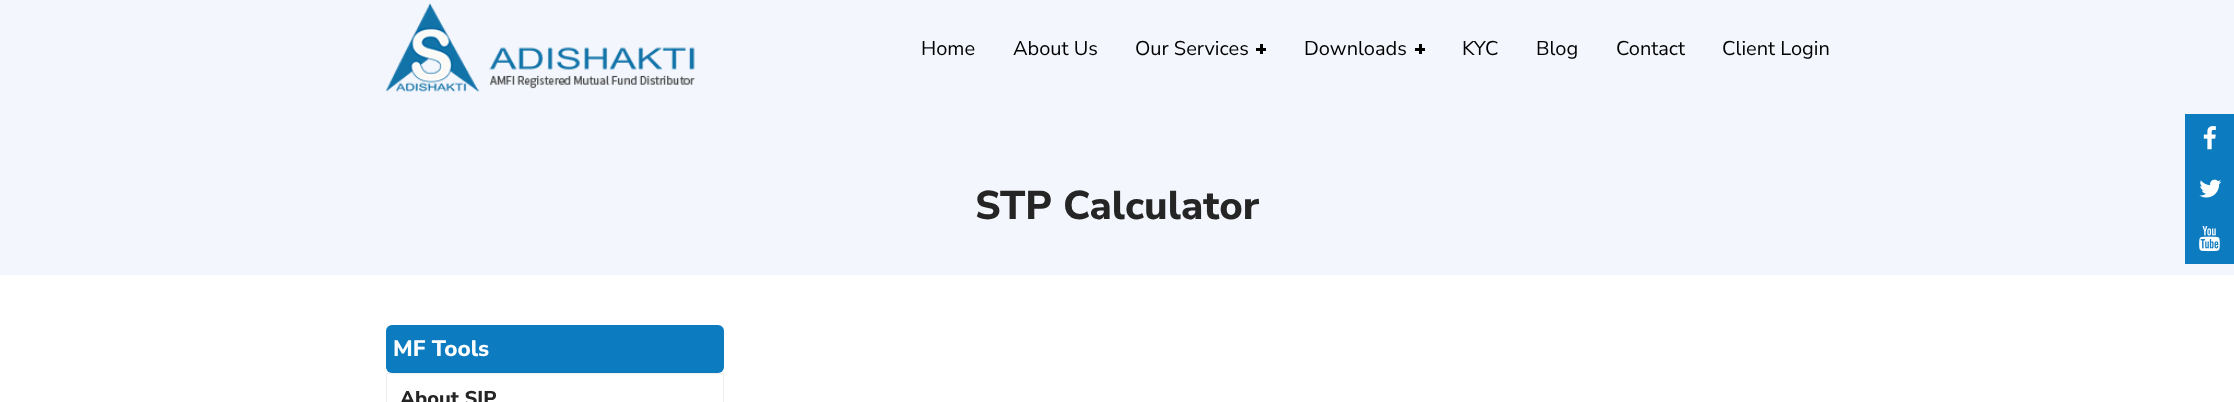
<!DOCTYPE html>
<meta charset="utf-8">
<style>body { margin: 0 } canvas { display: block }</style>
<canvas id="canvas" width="2234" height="402"></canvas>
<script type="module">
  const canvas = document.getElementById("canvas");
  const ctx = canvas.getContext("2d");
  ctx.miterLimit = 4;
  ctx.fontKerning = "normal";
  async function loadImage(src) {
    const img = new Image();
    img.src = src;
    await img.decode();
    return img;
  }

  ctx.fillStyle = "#ffffff";
  ctx.fillRect(0, 0, 2234, 402);
  ctx.fillStyle = "#f4f6fd";
  ctx.fillRect(0, 0, 2234, 275);
  ctx.drawImage(await loadImage("img1.png"), 386, 3, 309, 89);
  ctx.font = "20px Nunito Sans";
  ctx.fillStyle = "#000000";
  ctx.fillText("Home", 921, 55);
  ctx.fillText("About Us", 1013, 55);
  ctx.fillText("Our Services", 1135, 55);
  ctx.fillRect(1256, 48, 10, 3);
  ctx.fillRect(1260, 44, 3, 10);
  ctx.fillText("Downloads", 1304, 55);
  ctx.fillRect(1415, 48, 10, 3);
  ctx.fillRect(1419, 44, 3, 10);
  ctx.fillText("KYC", 1462, 55);
  ctx.fillText("Blog", 1536, 55);
  ctx.fillText("Contact", 1616, 55);
  ctx.fillText("Client Login", 1722, 55);
  ctx.font = "800 40px Nunito Sans";
  ctx.fillStyle = "#252525";
  ctx.fillText("STP Calculator", 975, 219);
  ctx.fillStyle = "#0c7bbf";
  ctx.fillRect(2185, 114, 49, 150);
  ctx.drawImage(await loadImage("img2.png"), 2203, 126, 13, 24);
  ctx.drawImage(await loadImage("img3.png"), 2199, 179, 23, 19);
  ctx.drawImage(await loadImage("img4.png"), 2199, 226, 21, 26);
  ctx.beginPath();
  ctx.roundRect(386, 325, 338, 48, 6);
  ctx.fill();
  ctx.font = "800 22.5px Nunito Sans";
  ctx.fillStyle = "#ffffff";
  ctx.fillText("MF Tools", 393, 356);
  ctx.strokeStyle = "#eeeeee";
  ctx.strokeRect(386.5, 373.5, 337, 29);
  ctx.font = "800 20px Nunito Sans";
  ctx.fillStyle = "#252525";
  ctx.fillText("About SIP", 400, 405);
</script>
